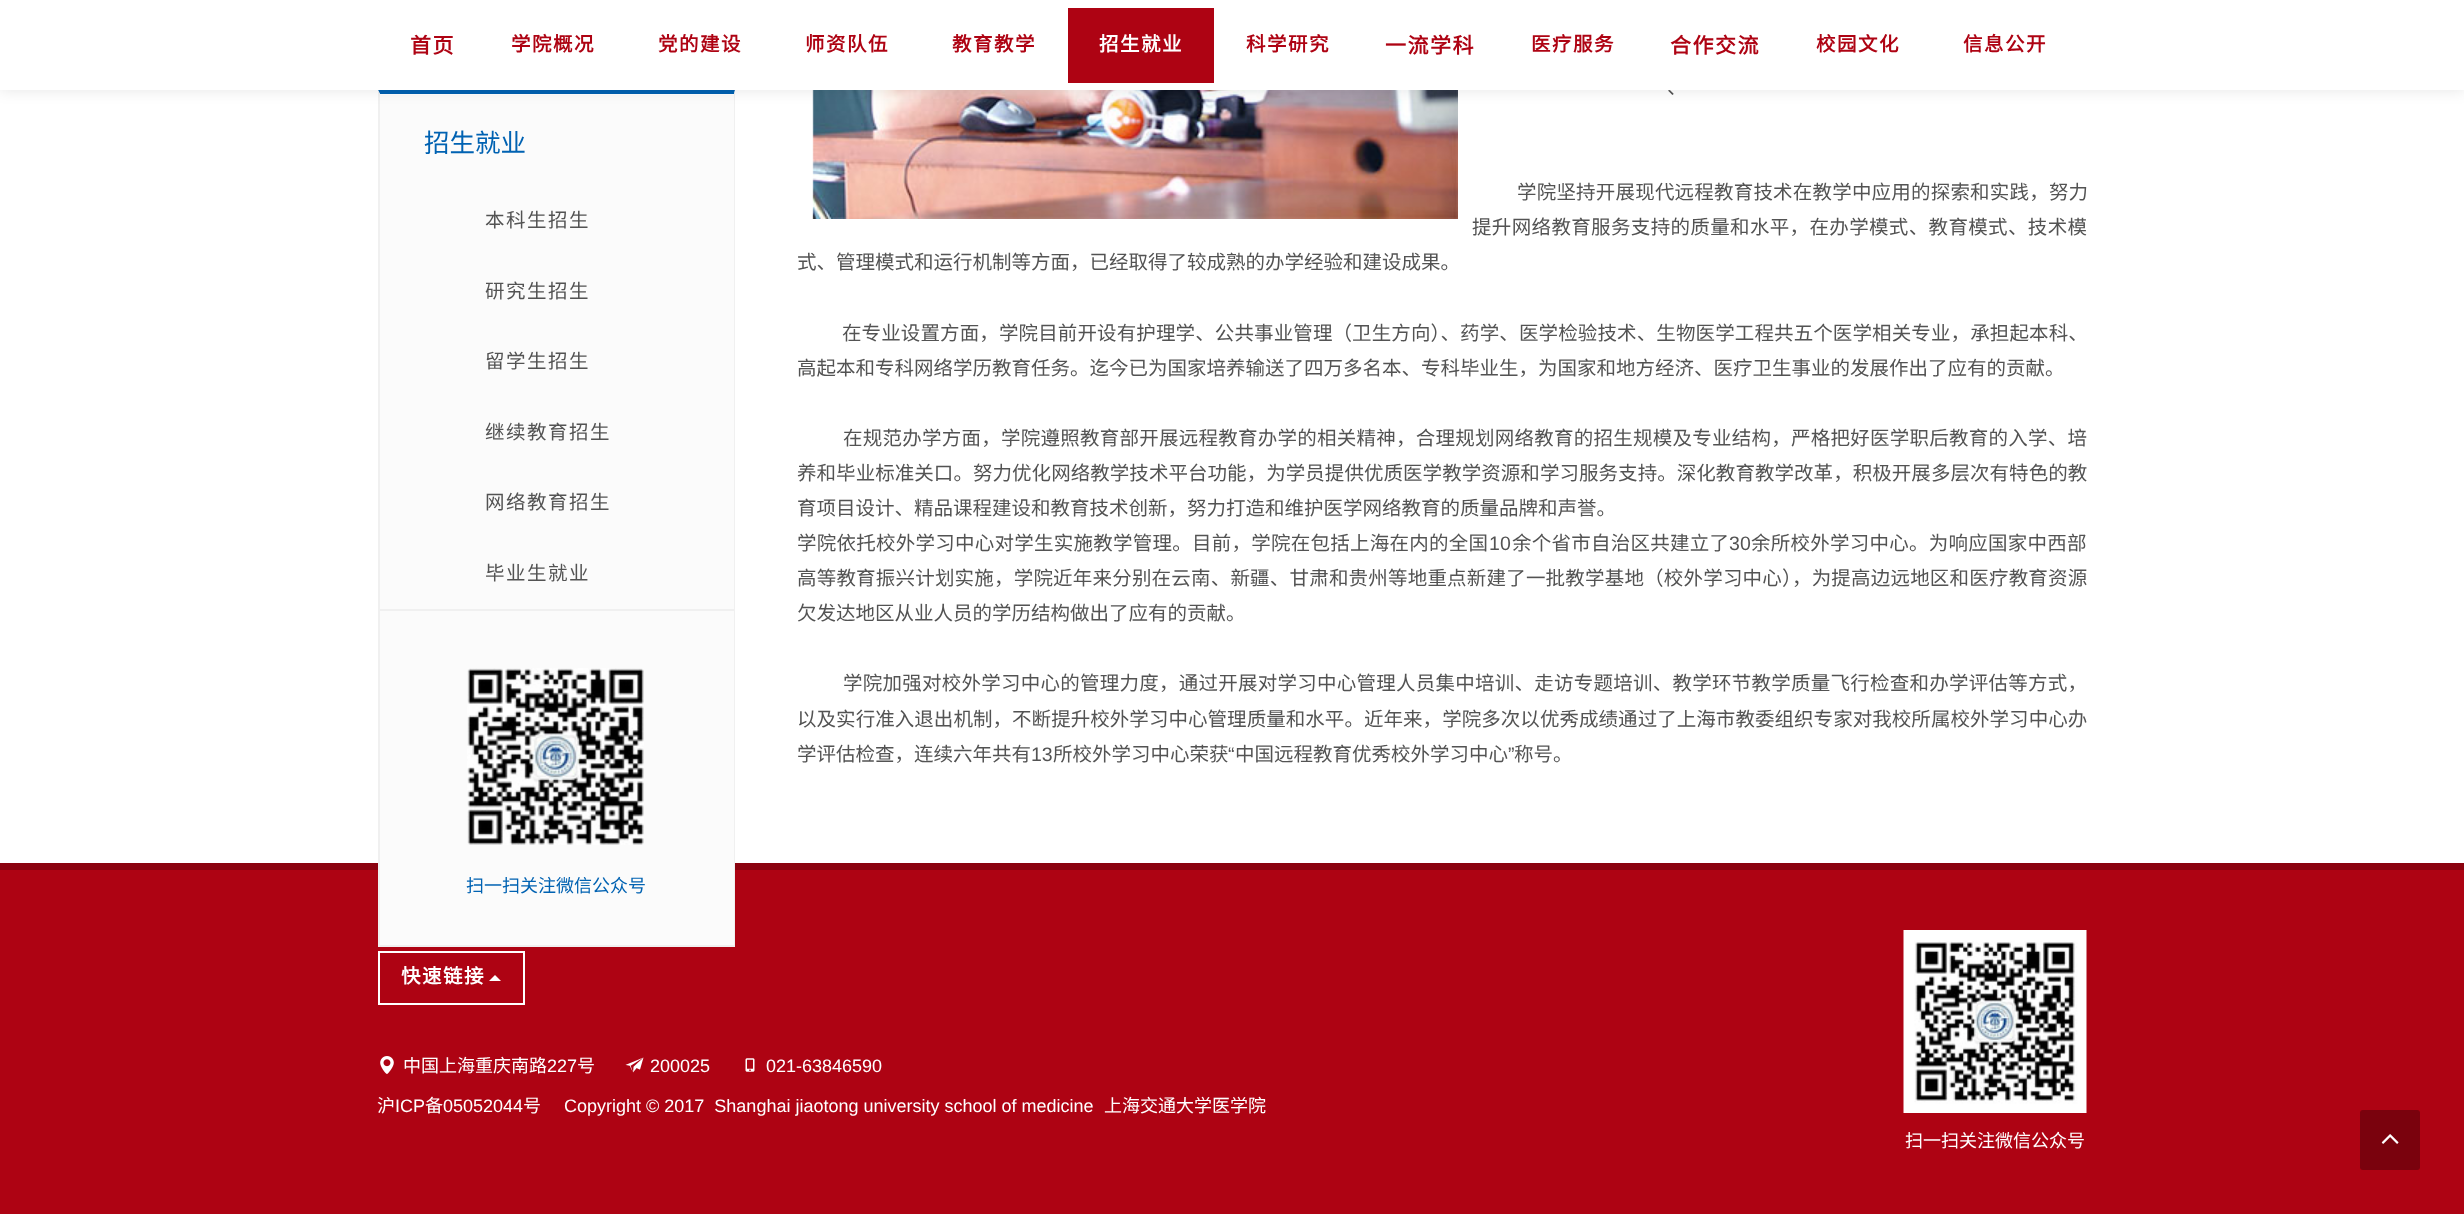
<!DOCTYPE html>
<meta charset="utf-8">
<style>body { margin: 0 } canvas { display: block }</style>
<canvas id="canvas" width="2464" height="1214"></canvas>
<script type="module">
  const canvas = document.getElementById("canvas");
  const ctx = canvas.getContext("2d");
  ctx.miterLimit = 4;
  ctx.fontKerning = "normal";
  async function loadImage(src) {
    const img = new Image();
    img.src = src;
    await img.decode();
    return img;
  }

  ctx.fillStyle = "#ffffff";
  ctx.fillRect(0, 0, 2464, 1214);
  ctx.fillStyle = "#ae0313";
  ctx.fillRect(0, 870, 2464, 344);
  ctx.fillStyle = "#8b020f";
  ctx.fillRect(0, 863, 2464, 7);
  ctx.fillStyle = "#fbfbfb";
  ctx.fillRect(380, 95, 354, 850);
  ctx.fillStyle = "#0062b2";
  ctx.beginPath();
  ctx.moveTo(378, 90);
  ctx.lineTo(735, 90);
  ctx.lineTo(734, 94);
  ctx.lineTo(380, 94);
  ctx.closePath();
  ctx.fill();
  ctx.fillStyle = "#f0f0f0";
  ctx.beginPath();
  ctx.moveTo(735, 90);
  ctx.lineTo(735, 946);
  ctx.lineTo(734, 945);
  ctx.lineTo(734, 94);
  ctx.closePath();
  ctx.fill();
  ctx.fillRect(378, 945, 357, 2);
  ctx.beginPath();
  ctx.moveTo(378, 946);
  ctx.lineTo(378, 90);
  ctx.lineTo(380, 94);
  ctx.lineTo(380, 945);
  ctx.closePath();
  ctx.fill();
  ctx.drawImage(await loadImage("img2.png"), 812, 90, 646, 129);
  ctx.fillStyle = "rgba(0, 0, 0, 0.1)";
  ctx.filter = "blur(7.5px)";
  ctx.beginPath();
  ctx.rect(0, 0, 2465, 90);
  ctx.fill();
  ctx.filter = "none";
  ctx.font = "19.5px Noto Sans CJK SC";
  ctx.fillStyle = "#535353";
  ctx.fillText("、", 1667, 94);
  ctx.fillStyle = "#ffffff";
  ctx.fillRect(0, 0, 2464, 90);
  ctx.letterSpacing = "1.5px";
  ctx.font = "bold 21px Noto Sans CJK SC";
  ctx.fillStyle = "#ae0313";
  ctx.fillText("首页", 410, 53);
  ctx.font = "bold 19.5px Noto Sans CJK SC";
  ctx.fillText("学院概况", 511, 51);
  ctx.fillText("党的建设", 658, 51);
  ctx.fillText("师资队伍", 805, 51);
  ctx.fillText("教育教学", 952, 51);
  ctx.fillRect(1068, 8, 146, 75);
  ctx.fillStyle = "#ffffff";
  ctx.fillText("招生就业", 1099, 51);
  ctx.fillStyle = "#ae0313";
  ctx.fillText("科学研究", 1246, 51);
  ctx.font = "bold 21px Noto Sans CJK SC";
  ctx.fillText("一流学科", 1385, 53);
  ctx.font = "bold 19.5px Noto Sans CJK SC";
  ctx.fillText("医疗服务", 1531, 51);
  ctx.font = "bold 21px Noto Sans CJK SC";
  ctx.fillText("合作交流", 1670, 53);
  ctx.font = "bold 19.5px Noto Sans CJK SC";
  ctx.fillText("校园文化", 1816, 51);
  ctx.fillText("信息公开", 1963, 51);
  ctx.letterSpacing = "0px";
  ctx.font = "25.5px Noto Sans CJK SC";
  ctx.fillStyle = "#0062b2";
  ctx.fillText("招生就业", 424, 152);
  ctx.letterSpacing = "1.5px";
  ctx.font = "19.5px Noto Sans CJK SC";
  ctx.fillStyle = "#535353";
  ctx.fillText("本科生招生", 485, 227);
  ctx.fillText("研究生招生", 485, 298);
  ctx.fillText("留学生招生", 485, 368);
  ctx.fillText("继续教育招生", 485, 439);
  ctx.fillText("网络教育招生", 485, 509);
  ctx.fillText("毕业生就业", 485, 580);
  ctx.fillStyle = "#f0f0f0";
  ctx.fillRect(380, 609, 354, 2);
  ctx.drawImage(await loadImage("img1.png"), 467, 668, 177, 177);
  ctx.letterSpacing = "0px";
  ctx.font = "18px Noto Sans CJK SC";
  ctx.fillStyle = "#0062b2";
  ctx.fillText("扫一扫关注微信公众号", 466, 892);
  ctx.letterSpacing = "0.2px";
  ctx.font = "19.5px Noto Sans CJK SC";
  ctx.fillStyle = "#535353";
  ctx.fillText("学院坚持开展现代远程教育技术在教学中应用的探索和实践，努力", 1517, 199);
  ctx.letterSpacing = "0.35px";
  ctx.fillText("提升网络教育服务支持的质量和水平，在办学模式、教育模式、技术模", 1472, 234);
  ctx.letterSpacing = "0px";
  ctx.fillText("式、管理模式和运行机制等方面，已经取得了较成熟的办学经验和建设成果。", 797, 269);
  ctx.letterSpacing = "0.12px";
  ctx.fillText("在专业设置方面，学院目前开设有护理学、公共事业管理（卫生方向）、药学、医学检验技术、生物医学工程共五个医学相关专业，承担起本科、", 842, 340);
  ctx.letterSpacing = "0px";
  ctx.fillText("高起本和专科网络学历教育任务。迄今已为国家培养输送了四万多名本、专科毕业生，为国家和地方经济、医疗卫生事业的发展作出了应有的贡献。", 797, 375);
  ctx.letterSpacing = "0.25px";
  ctx.fillText("在规范办学方面，学院遵照教育部开展远程教育办学的相关精神，合理规划网络教育的招生规模及专业结构，严格把好医学职后教育的入学、培", 843, 445);
  ctx.letterSpacing = "0.05px";
  ctx.fillText("养和毕业标准关口。努力优化网络教学技术平台功能，为学员提供优质医学教学资源和学习服务支持。深化教育教学改革，积极开展多层次有特色的教", 797, 480);
  ctx.letterSpacing = "0px";
  ctx.fillText("育项目设计、精品课程建设和教育技术创新，努力打造和维护医学网络教育的质量品牌和声誉。", 797, 515);
  ctx.letterSpacing = "0.25px";
  ctx.fillText("学院依托校外学习中心对学生实施教学管理。目前，学院在包括上海在内的全国", 797, 550);
  ctx.font = "19.5px Liberation Sans";
  ctx.fillText("10", 1489, 550);
  ctx.font = "19.5px Noto Sans CJK SC";
  ctx.fillText("余个省市自治区共建立了", 1512, 550);
  ctx.font = "19.5px Liberation Sans";
  ctx.fillText("30", 1729, 550);
  ctx.font = "19.5px Noto Sans CJK SC";
  ctx.fillText("余所校外学习中心。为响应国家中西部", 1751, 550);
  ctx.letterSpacing = "0.2px";
  ctx.fillText("高等教育振兴计划实施，学院近年来分别在云南、新疆、甘肃和贵州等地重点新建了一批教学基地（校外学习中心），为提高边远地区和医疗教育资源", 797, 585);
  ctx.letterSpacing = "0px";
  ctx.fillText("欠发达地区从业人员的学历结构做出了应有的贡献。", 797, 620);
  ctx.letterSpacing = "0.25px";
  ctx.fillText("学院加强对校外学习中心的管理力度，通过开展对学习中心管理人员集中培训、走访专题培训、教学环节教学质量飞行检查和办学评估等方式，", 843, 690);
  ctx.letterSpacing = "0.05px";
  ctx.fillText("以及实行准入退出机制，不断提升校外学习中心管理质量和水平。近年来，学院多次以优秀成绩通过了上海市教委组织专家对我校所属校外学习中心办", 797, 726);
  ctx.letterSpacing = "0px";
  ctx.fillText("学评估检查，连续六年共有", 797, 761);
  ctx.font = "19.5px Liberation Sans";
  ctx.fillText("13", 1031, 761);
  ctx.font = "19.5px Noto Sans CJK SC";
  ctx.fillText("所校外学习中心荣获", 1053, 761);
  ctx.font = "19.5px Liberation Sans";
  ctx.fillText("“", 1228, 761);
  ctx.font = "19.5px Noto Sans CJK SC";
  ctx.fillText("中国远程教育优秀校外学习中心", 1235, 761);
  ctx.font = "19.5px Liberation Sans";
  ctx.fillText("”", 1508, 761);
  ctx.font = "19.5px Noto Sans CJK SC";
  ctx.fillText("称号。", 1514, 761);
  ctx.strokeStyle = "#ffffff";
  ctx.lineWidth = 2;
  ctx.strokeRect(379, 952, 145, 52);
  ctx.letterSpacing = "1.5px";
  ctx.font = "bold 19.5px Noto Sans CJK SC";
  ctx.fillStyle = "#ffffff";
  ctx.fillText("快速链接", 401, 983);
  ctx.beginPath();
  ctx.moveTo(501, 981);
  ctx.lineTo(489, 981);
  ctx.lineTo(495, 975);
  ctx.closePath();
  ctx.fill();
  ctx.drawImage(await loadImage("img3.png"), 380, 1056, 14, 18);
  ctx.letterSpacing = "0px";
  ctx.font = "18px Noto Sans CJK SC";
  ctx.fillText("中国上海重庆南路", 403, 1072);
  ctx.font = "18px Liberation Sans";
  ctx.fillText("227", 547, 1072);
  ctx.font = "18px Noto Sans CJK SC";
  ctx.fillText("号", 577, 1072);
  ctx.drawImage(await loadImage("img4.png"), 625, 1057, 19, 16);
  ctx.font = "18px Liberation Sans";
  ctx.fillText("200025", 650, 1072);
  ctx.drawImage(await loadImage("img5.png"), 745, 1058, 10, 14);
  ctx.fillText("021-63846590", 766, 1072);
  ctx.font = "18px Noto Sans CJK SC";
  ctx.fillText("沪", 377, 1112);
  ctx.font = "18px Liberation Sans";
  ctx.fillText("ICP", 395, 1112);
  ctx.font = "18px Noto Sans CJK SC";
  ctx.fillText("备", 425, 1112);
  ctx.font = "18px Liberation Sans";
  ctx.fillText("05052044", 443, 1112);
  ctx.font = "18px Noto Sans CJK SC";
  ctx.fillText("号", 523, 1112);
  ctx.font = "18px Liberation Sans";
  ctx.fillText("Copyright © 2017  Shanghai jiaotong university school of medicine", 564, 1112);
  ctx.font = "18px Noto Sans CJK SC";
  ctx.fillText("上海交通大学医学院", 1104, 1112);
  ctx.drawImage(await loadImage("img6.png"), 1903, 930, 184, 183);
  ctx.fillText("扫一扫关注微信公众号", 1905, 1147);
  ctx.fillStyle = "#7a020d";
  ctx.beginPath();
  ctx.roundRect(2360, 1110, 60, 60, 3);
  ctx.fill();
  ctx.drawImage(await loadImage("img7.png"), 2381, 1134, 18, 10);
</script>
